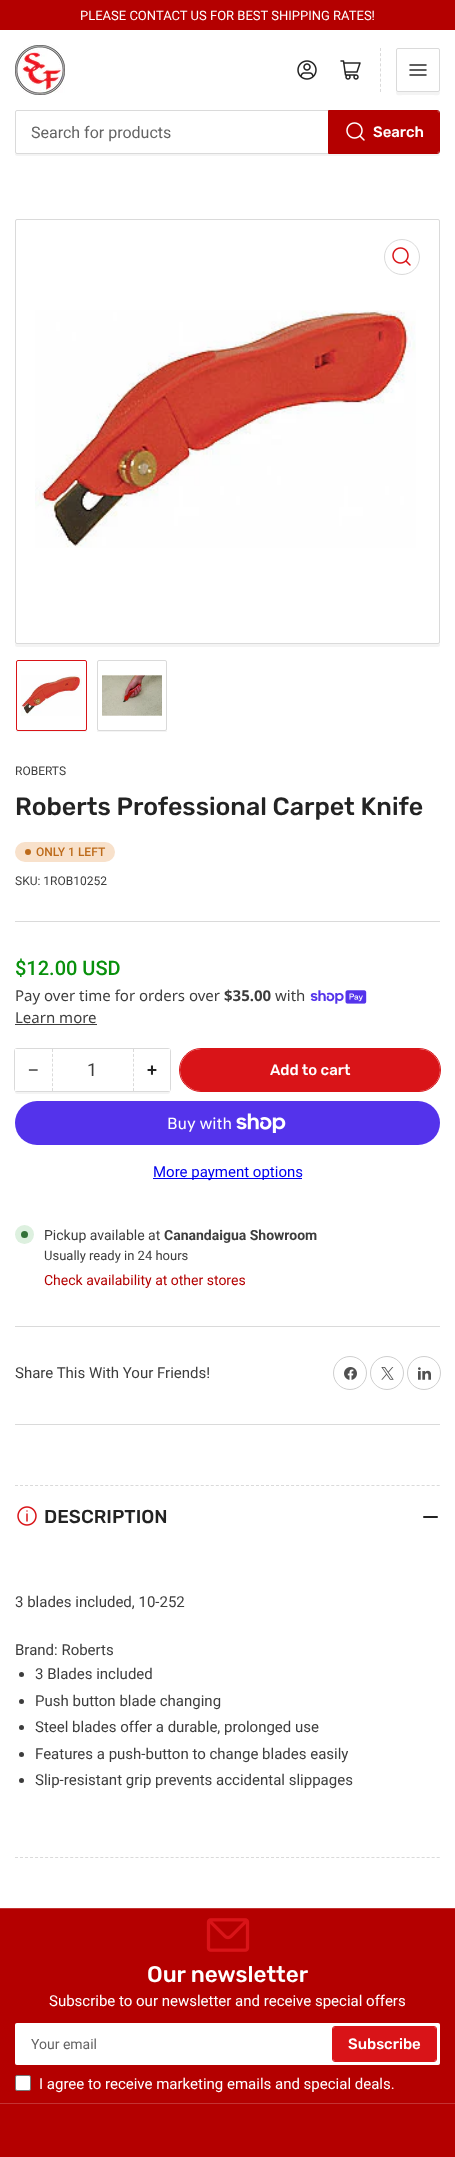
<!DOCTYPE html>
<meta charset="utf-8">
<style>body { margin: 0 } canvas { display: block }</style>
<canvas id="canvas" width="455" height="2157"></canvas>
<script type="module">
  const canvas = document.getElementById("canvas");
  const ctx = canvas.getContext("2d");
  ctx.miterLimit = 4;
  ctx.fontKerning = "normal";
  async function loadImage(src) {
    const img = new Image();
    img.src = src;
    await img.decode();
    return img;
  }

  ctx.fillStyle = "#ffffff";
  ctx.fillRect(0, 0, 455, 2157);
  ctx.fillStyle = "#b40000";
  ctx.fillRect(0, 0, 455, 30);
  ctx.font = "13px Roboto";
  ctx.fillStyle = "#ffffff";
  ctx.fillText("PLEASE CONTACT US FOR BEST SHIPPING RATES!", 80, 20);
  ctx.drawImage(await loadImage("img1.png"), 15, 45, 50, 50);
  ctx.drawImage(await loadImage("img2.png"), 297, 60, 20, 20);
  ctx.drawImage(await loadImage("img3.png"), 340, 60, 21, 20);
  ctx.beginPath();
  ctx.moveTo(380.5, 48);
  ctx.lineTo(380.5, 92);
  ctx.strokeStyle = "#dadada";
  ctx.setLineDash([3, 2.12]);
  ctx.stroke();
  ctx.fillStyle = "#f4f4f4";
  ctx.beginPath();
  ctx.moveTo(396, 90);
  ctx.bezierCurveTo(396, 97, 397, 95, 405, 95);
  ctx.lineTo(431, 95);
  ctx.bezierCurveTo(439, 95, 440, 97, 440, 90);
  ctx.bezierCurveTo(440, 91, 439, 92, 438, 92);
  ctx.lineTo(398, 92);
  ctx.bezierCurveTo(397, 92, 396, 91, 396, 90);
  ctx.closePath();
  ctx.fill();
  ctx.beginPath();
  ctx.roundRect(396.5, 48.5, 43, 43, 1.5);
  ctx.setLineDash([]);
  ctx.stroke();
  ctx.drawImage(await loadImage("img4.png"), 409, 64, 18, 12);
  ctx.beginPath();
  ctx.moveTo(15, 152);
  ctx.lineTo(15, 155);
  ctx.lineTo(17, 156);
  ctx.lineTo(438, 156);
  ctx.bezierCurveTo(440, 156, 440, 154, 440, 152);
  ctx.bezierCurveTo(440, 153, 439, 154, 438, 154);
  ctx.lineTo(17, 154);
  ctx.bezierCurveTo(16, 154, 15, 153, 15, 152);
  ctx.closePath();
  ctx.fill();
  ctx.beginPath();
  ctx.roundRect(15.5, 110.5, 424, 43, 1.5);
  ctx.stroke();
  ctx.font = "16px Roboto";
  ctx.fillStyle = "#646464";
  ctx.fillText("Search for products", 31, 138);
  ctx.beginPath();
  ctx.roundRect(328.5, 110.5, 111, 43, [0, 2.5, 2.5, 0]);
  ctx.strokeStyle = "#b40000";
  ctx.stroke();
  ctx.fillStyle = "#b40000";
  ctx.beginPath();
  ctx.roundRect(329, 111, 110, 42, [0, 2, 2, 0]);
  ctx.fill();
  ctx.drawImage(await loadImage("img5.png"), 346, 122, 19, 19);
  ctx.font = "500 15px Rubik";
  ctx.fillStyle = "#ffffff";
  ctx.fillText("Search", 373, 137);
  ctx.fillStyle = "#f4f4f4";
  ctx.beginPath();
  ctx.moveTo(15, 642);
  ctx.lineTo(15, 645);
  ctx.bezierCurveTo(15, 646, 16, 647, 17, 647);
  ctx.lineTo(438, 647);
  ctx.bezierCurveTo(439, 647, 440, 646, 440, 645);
  ctx.lineTo(440, 642);
  ctx.bezierCurveTo(440, 643, 439, 644, 438, 644);
  ctx.lineTo(17, 644);
  ctx.bezierCurveTo(16, 644, 15, 643, 15, 642);
  ctx.closePath();
  ctx.fill();
  ctx.beginPath();
  ctx.roundRect(15.5, 219.5, 424, 424, 1.5);
  ctx.strokeStyle = "#dadada";
  ctx.stroke();
  ctx.beginPath();
  ctx.arc(402, 257, 17.5, 0, Math.PI * 2);
  ctx.stroke();
  ctx.drawImage(await loadImage("img6.png"), 392, 247, 19, 19);
  ctx.drawImage(await loadImage("img7.png"), 35, 310, 381, 238);
  ctx.save();
  ctx.beginPath();
  ctx.rect(15, 659, 425, 73);
  ctx.clip();
  ctx.beginPath();
  ctx.moveTo(16, 729);
  ctx.bezierCurveTo(16, 737, 19, 734, 29, 734);
  ctx.lineTo(74, 734);
  ctx.bezierCurveTo(84, 734, 87, 737, 87, 729);
  ctx.bezierCurveTo(87, 730, 86, 731, 85, 731);
  ctx.lineTo(17, 731);
  ctx.closePath();
  ctx.fill();
  ctx.restore();
  ctx.beginPath();
  ctx.roundRect(16.5, 660.5, 70, 70, 1.5);
  ctx.strokeStyle = "#d91418";
  ctx.stroke();
  ctx.drawImage(await loadImage("img8.png"), 21, 675, 61, 41);
  ctx.save();
  ctx.beginPath();
  ctx.rect(15, 659, 425, 73);
  ctx.clip();
  ctx.beginPath();
  ctx.moveTo(97, 729);
  ctx.bezierCurveTo(97, 737, 100, 734, 110, 734);
  ctx.lineTo(154, 734);
  ctx.bezierCurveTo(164, 734, 167, 737, 167, 729);
  ctx.bezierCurveTo(167, 730, 166, 731, 165, 731);
  ctx.lineTo(98, 731);
  ctx.closePath();
  ctx.fill();
  ctx.restore();
  ctx.beginPath();
  ctx.roundRect(97.5, 660.5, 69, 70, 1.5);
  ctx.strokeStyle = "#dadada";
  ctx.stroke();
  ctx.drawImage(await loadImage("img9.png"), 102, 674, 60, 42);
  ctx.fillStyle = "#dadada";
  ctx.fillRect(15, 921, 425, 1);
  ctx.font = "12px Roboto";
  ctx.fillStyle = "#3d3d3d";
  ctx.fillText("ROBERTS", 15, 775);
  ctx.font = "500 25px Rubik";
  ctx.fillStyle = "#232323";
  ctx.fillText("Roberts Professional Carpet Knife", 15, 815);
  ctx.fillStyle = "#f8e1cb";
  ctx.beginPath();
  ctx.roundRect(15, 842, 100, 20, 10);
  ctx.fill();
  ctx.fillStyle = "#bd6b1b";
  ctx.beginPath();
  ctx.arc(28, 852, 3, 0, Math.PI * 2);
  ctx.fill();
  ctx.font = "500 12px Roboto";
  ctx.fillText("ONLY 1 LEFT", 36, 856);
  ctx.font = "12px Roboto";
  ctx.fillStyle = "#3d3d3d";
  ctx.fillText("SKU: 1ROB10252", 15, 885);
  ctx.font = "500 20px Roboto";
  ctx.fillStyle = "#08910c";
  ctx.fillText("$12.00 USD", 15, 975);
  ctx.font = "15px Noto Sans";
  ctx.fillStyle = "#3d3d3d";
  ctx.fillText("Pay over time for orders over", 15, 1001);
  ctx.font = "bold 15px Noto Sans";
  ctx.fillText("$35.00", 224, 1001);
  ctx.font = "15px Noto Sans";
  ctx.fillText("with", 275, 1001);
  ctx.drawImage(await loadImage("img10.png"), 310, 990, 57, 14);
  ctx.fillText("Learn more", 15, 1023);
  ctx.fillRect(15, 1024, 82, 1);
  ctx.fillStyle = "#f4f4f4";
  ctx.beginPath();
  ctx.moveTo(15, 1089);
  ctx.lineTo(15, 1092);
  ctx.bezierCurveTo(15, 1093, 16, 1094, 17, 1094);
  ctx.lineTo(168, 1094);
  ctx.bezierCurveTo(169, 1094, 170, 1093, 170, 1092);
  ctx.lineTo(170, 1089);
  ctx.bezierCurveTo(170, 1090, 169, 1091, 168, 1091);
  ctx.lineTo(17, 1091);
  ctx.bezierCurveTo(16, 1091, 15, 1090, 15, 1089);
  ctx.closePath();
  ctx.fill();
  ctx.beginPath();
  ctx.roundRect(14.5, 1048.5, 156, 43, 2.5);
  ctx.stroke();
  ctx.fillStyle = "#ffffff";
  ctx.fillRect(15, 1049, 2, 42);
  ctx.font = "18px Liberation Sans";
  ctx.fillStyle = "#232323";
  ctx.fillText("−", 28, 1076);
  ctx.beginPath();
  ctx.moveTo(133.5, 1049);
  ctx.lineTo(133.5, 1091);
  ctx.setLineDash([3, 1.88]);
  ctx.stroke();
  ctx.beginPath();
  ctx.moveTo(52.5, 1049);
  ctx.lineTo(52.5, 1091);
  ctx.stroke();
  ctx.font = "18px Roboto";
  ctx.fillStyle = "#3d3d3d";
  ctx.fillText("1", 87, 1076);
  ctx.fillStyle = "#ffffff";
  ctx.fillRect(168, 1049, 2, 42);
  ctx.font = "500 18px Roboto";
  ctx.fillStyle = "#232323";
  ctx.fillText("+", 147, 1076);
  ctx.beginPath();
  ctx.roundRect(179.5, 1048.5, 261, 43, 21.5);
  ctx.strokeStyle = "#d91418";
  ctx.setLineDash([]);
  ctx.stroke();
  ctx.fillStyle = "#d91418";
  ctx.beginPath();
  ctx.roundRect(180, 1049, 260, 42, 21);
  ctx.fill();
  ctx.font = "500 15px Rubik";
  ctx.fillStyle = "#ffffff";
  ctx.fillText("Add to cart", 270, 1075);
  ctx.fillStyle = "#5433eb";
  ctx.beginPath();
  ctx.roundRect(15, 1101, 425, 44, 22);
  ctx.fill();
  ctx.font = "16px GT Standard";
  ctx.fillStyle = "#ffffff";
  ctx.fillText("Buy with", 167, 1129);
  ctx.drawImage(await loadImage("img11.png"), 236, 1113, 50, 20);
  ctx.fillStyle = "#0000ee";
  ctx.fillRect(153, 1178, 149, 1);
  ctx.font = "15px Roboto";
  ctx.fillText("More payment options", 153, 1177);
  ctx.fillStyle = "#ddf0df";
  ctx.beginPath();
  ctx.arc(24.5, 1234.5, 9.5, 0, Math.PI * 2);
  ctx.fill();
  ctx.fillStyle = "#337239";
  ctx.beginPath();
  ctx.arc(24.5, 1234.5, 3.5, 0, Math.PI * 2);
  ctx.fill();
  ctx.font = "14px Roboto";
  ctx.fillStyle = "#3d3d3d";
  ctx.fillText("Pickup available at", 44, 1240);
  ctx.font = "bold 14px Roboto";
  ctx.fillText("Canandaigua Showroom", 164, 1240);
  ctx.font = "13px Roboto";
  ctx.fillText("Usually ready in 24 hours", 44, 1260);
  ctx.font = "14px Roboto";
  ctx.fillStyle = "#b40000";
  ctx.fillText("Check availability at other stores", 44, 1285);
  ctx.fillStyle = "#dadada";
  ctx.fillRect(15, 1326, 425, 1);
  ctx.font = "15px Roboto";
  ctx.fillStyle = "#3d3d3d";
  ctx.fillText("Share This With Your Friends!", 15, 1378);
  ctx.beginPath();
  ctx.arc(350, 1373, 16.5, 0, Math.PI * 2);
  ctx.strokeStyle = "#cfcfcf";
  ctx.stroke();
  ctx.drawImage(await loadImage("img12.png"), 344, 1367, 13, 13);
  ctx.beginPath();
  ctx.arc(387, 1373, 16.5, 0, Math.PI * 2);
  ctx.stroke();
  ctx.drawImage(await loadImage("img13.png"), 381, 1367, 13, 13);
  ctx.beginPath();
  ctx.arc(424, 1373, 16.5, 0, Math.PI * 2);
  ctx.stroke();
  ctx.drawImage(await loadImage("img14.png"), 418, 1367, 13, 13);
  ctx.fillStyle = "#dadada";
  ctx.fillRect(15, 1424, 425, 1);
  ctx.beginPath();
  ctx.moveTo(15, 1485.5);
  ctx.lineTo(440, 1485.5);
  ctx.strokeStyle = "#dadada";
  ctx.setLineDash([3, 2.02]);
  ctx.stroke();
  ctx.beginPath();
  ctx.moveTo(15, 1857.5);
  ctx.lineTo(440, 1857.5);
  ctx.stroke();
  ctx.drawImage(await loadImage("img15.png"), 17, 1506, 20, 20);
  ctx.font = "500 18.75px Rubik";
  ctx.fillStyle = "#232323";
  ctx.fillText("DESCRIPTION", 44, 1523);
  ctx.beginPath();
  ctx.roundRect(423, 1516, 10, 2, 1);
  ctx.fill();
  ctx.beginPath();
  ctx.roundRect(429, 1516, 9, 2, 1);
  ctx.fill();
  ctx.font = "15px Roboto";
  ctx.fillStyle = "#3d3d3d";
  ctx.fillText("3 blades included, 10-252", 15, 1607);
  ctx.fillText("Brand: Roberts", 15, 1655);
  ctx.beginPath();
  ctx.arc(21.5, 1674.5, 2.5, 0, Math.PI * 2);
  ctx.fill();
  ctx.fillText("3 Blades included", 35, 1679);
  ctx.beginPath();
  ctx.arc(21.5, 1701.5, 2.5, 0, Math.PI * 2);
  ctx.fill();
  ctx.fillText("Push button blade changing", 35, 1706);
  ctx.beginPath();
  ctx.arc(21.5, 1727.5, 2.5, 0, Math.PI * 2);
  ctx.fill();
  ctx.fillText("Steel blades offer a durable, prolonged use", 35, 1732);
  ctx.beginPath();
  ctx.arc(21.5, 1754.5, 2.5, 0, Math.PI * 2);
  ctx.fill();
  ctx.fillText("Features a push-button to change blades easily", 35, 1759);
  ctx.beginPath();
  ctx.arc(21.5, 1780.5, 2.5, 0, Math.PI * 2);
  ctx.fill();
  ctx.fillText("Slip-resistant grip prevents accidental slippages", 35, 1785);
  ctx.fillStyle = "#b40000";
  ctx.fillRect(0, 1909, 455, 194);
  ctx.fillStyle = "#c33333";
  ctx.fillRect(0, 1908, 455, 1);
  ctx.fillRect(0, 2103, 455, 1);
  ctx.drawImage(await loadImage("img16.png"), 206, 1918, 44, 34);
  ctx.font = "500 22.5px Rubik";
  ctx.fillStyle = "#ffffff";
  ctx.fillText("Our newsletter", 147, 1982);
  ctx.font = "15px Roboto";
  ctx.fillText("Subscribe to our newsletter and receive special offers", 49, 2006);
  ctx.beginPath();
  ctx.roundRect(15, 2023, 425, 42, 2);
  ctx.fill();
  ctx.beginPath();
  ctx.roundRect(15.5, 2023.5, 424, 41, 1.5);
  ctx.strokeStyle = "rgba(255, 255, 255, 0.2)";
  ctx.setLineDash([]);
  ctx.stroke();
  ctx.font = "14px Roboto";
  ctx.fillStyle = "#646464";
  ctx.fillText("Your email", 31, 2049);
  ctx.beginPath();
  ctx.roundRect(332.5, 2026.5, 104, 35, 2.5);
  ctx.strokeStyle = "#d91418";
  ctx.stroke();
  ctx.fillStyle = "#d91418";
  ctx.beginPath();
  ctx.roundRect(333, 2027, 103, 34, 2);
  ctx.fill();
  ctx.font = "500 15px Rubik";
  ctx.fillStyle = "#ffffff";
  ctx.fillText("Subscribe", 348, 2049);
  ctx.beginPath();
  ctx.roundRect(15.5, 2075.5, 15, 15, 1.5);
  ctx.fill();
  ctx.strokeStyle = "#767676";
  ctx.stroke();
  ctx.font = "15px Roboto";
  ctx.fillText("I agree to receive marketing emails and special deals.", 39, 2089);
  ctx.fillStyle = "#b40000";
  ctx.fillRect(0, 2104, 455, 53);
</script>
